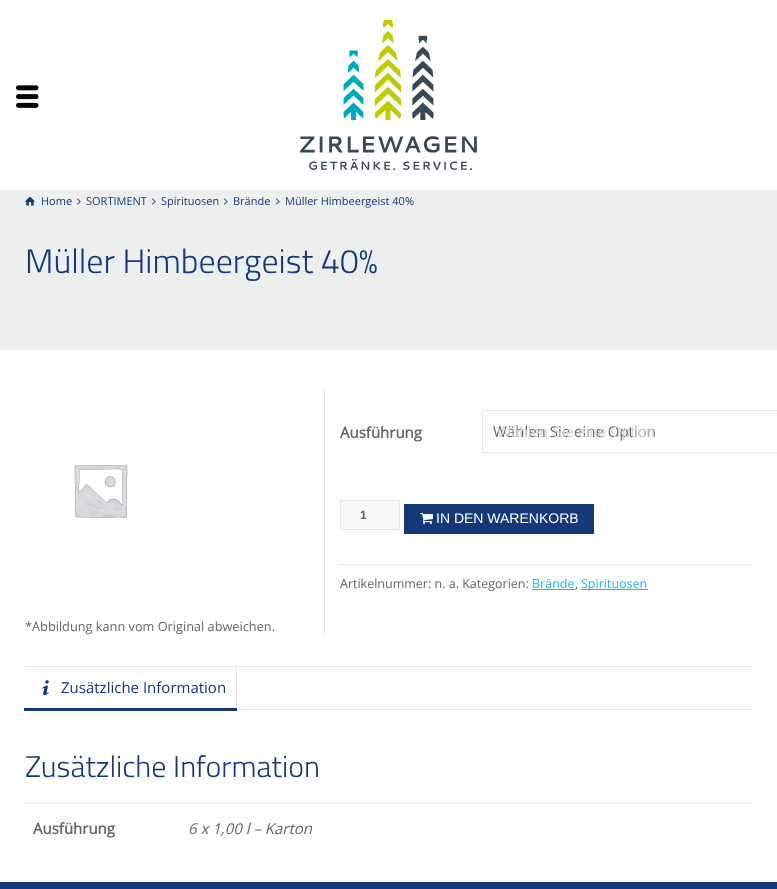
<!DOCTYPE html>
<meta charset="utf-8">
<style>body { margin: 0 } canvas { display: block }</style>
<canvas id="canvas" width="777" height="889"></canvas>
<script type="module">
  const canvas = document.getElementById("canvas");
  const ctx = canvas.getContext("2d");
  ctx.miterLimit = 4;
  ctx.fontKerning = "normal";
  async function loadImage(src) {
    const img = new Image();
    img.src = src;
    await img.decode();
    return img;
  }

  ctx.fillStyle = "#ffffff";
  ctx.fillRect(0, 0, 777, 889);
  ctx.drawImage(await loadImage("img1.png"), 16, 85, 23, 23);
  ctx.drawImage(await loadImage("img2.png"), 300, 20, 177, 150);
  ctx.fillStyle = "#edefef";
  ctx.fillRect(0, 190, 777, 160);
  ctx.drawImage(await loadImage("img3.png"), 25, 196, 10, 10);
  ctx.font = "11px Open Sans";
  ctx.fillStyle = "#153878";
  ctx.fillText("Home", 41, 205);
  ctx.drawImage(await loadImage("img4.png"), 77, 198, 4, 7);
  ctx.fillText("SORTIMENT", 86, 205);
  ctx.drawImage(await loadImage("img4.png"), 152, 198, 4, 7);
  ctx.fillText("Spirituosen", 161, 205);
  ctx.drawImage(await loadImage("img4.png"), 224, 198, 4, 7);
  ctx.fillText("Brände", 233, 205);
  ctx.drawImage(await loadImage("img4.png"), 276, 198, 4, 7);
  ctx.fillText("Müller Himbeergeist 40%", 285, 205);
  ctx.font = "300 34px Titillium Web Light";
  ctx.fillText("Müller Himbeergeist 40%", 25, 273);
  ctx.fillStyle = "#e8e8e8";
  ctx.fillRect(324, 390, 1, 246);
  ctx.font = "bold 15px Open Sans";
  ctx.fillStyle = "#666666";
  ctx.fillText("Ausführung", 340, 438);
  ctx.strokeStyle = "#e8e8e8";
  ctx.strokeRect(482.5, 410.5, 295, 42);
  ctx.font = "15px Open Sans";
  ctx.fillText("Wählen Sie eine Option", 493, 437);
  ctx.font = "15px Liberation Sans";
  ctx.fillStyle = "#d2d2d2";
  ctx.fillText("Wählen Sie eine Option", 497, 437);
  ctx.fillStyle = "#fafafa";
  ctx.beginPath();
  ctx.rect(340.5, 500.5, 59, 29);
  ctx.fill();
  ctx.stroke();
  ctx.font = "bold 12px Liberation Sans";
  ctx.fillStyle = "#666666";
  ctx.fillText("1", 360, 519);
  ctx.fillStyle = "#153878";
  ctx.fillRect(404, 504, 190, 30);
  ctx.drawImage(await loadImage("img5.png"), 420, 513, 13, 12);
  ctx.font = "14px Liberation Sans";
  ctx.fillStyle = "#ffffff";
  ctx.fillText("IN DEN WARENKORB", 436, 523);
  ctx.fillStyle = "#e8e8e8";
  ctx.fillRect(340, 564, 412, 1);
  ctx.font = "12.5px Open Sans";
  ctx.fillStyle = "#666666";
  ctx.fillText("Artikelnummer: n. a. Kategorien:", 340, 588);
  ctx.fillStyle = "#11bcef";
  ctx.fillText("Brände", 532, 588);
  ctx.fillStyle = "#666666";
  ctx.fillText(",", 575, 588);
  ctx.fillStyle = "#11bcef";
  ctx.fillRect(532, 589, 43, 1);
  ctx.fillRect(581, 589, 67, 1);
  ctx.fillText("Spirituosen", 581, 588);
  ctx.drawImage(await loadImage("img6.png"), 74, 465, 54, 53);
  ctx.font = "12.75px Open Sans";
  ctx.fillStyle = "#666666";
  ctx.fillText("*Abbildung kann vom Original abweichen.", 25, 631);
  ctx.fillStyle = "#e8e8e8";
  ctx.fillRect(25, 666, 727, 1);
  ctx.fillRect(237, 709, 515, 1);
  ctx.fillRect(236, 667, 1, 42);
  ctx.drawImage(await loadImage("img7.png"), 42, 680, 7, 16);
  ctx.font = "15px Open Sans";
  ctx.fillStyle = "#153878";
  ctx.fillText("Zusätzliche Information", 61, 693);
  ctx.fillRect(24, 708, 213, 3);
  ctx.font = "300 30px Titillium Web Light";
  ctx.fillText("Zusätzliche Information", 25, 777);
  ctx.font = "bold 15px Open Sans";
  ctx.fillStyle = "#666666";
  ctx.fillText("Ausführung", 33, 834);
  ctx.fillStyle = "#e8e8e8";
  ctx.fillRect(25, 803, 728, 1);
  ctx.font = "italic 15px Open Sans";
  ctx.fillStyle = "#666666";
  ctx.fillText("6 x 1,00 l – Karton", 188, 834);
  ctx.fillStyle = "#153878";
  ctx.fillRect(0, 882, 777, 7);
</script>
